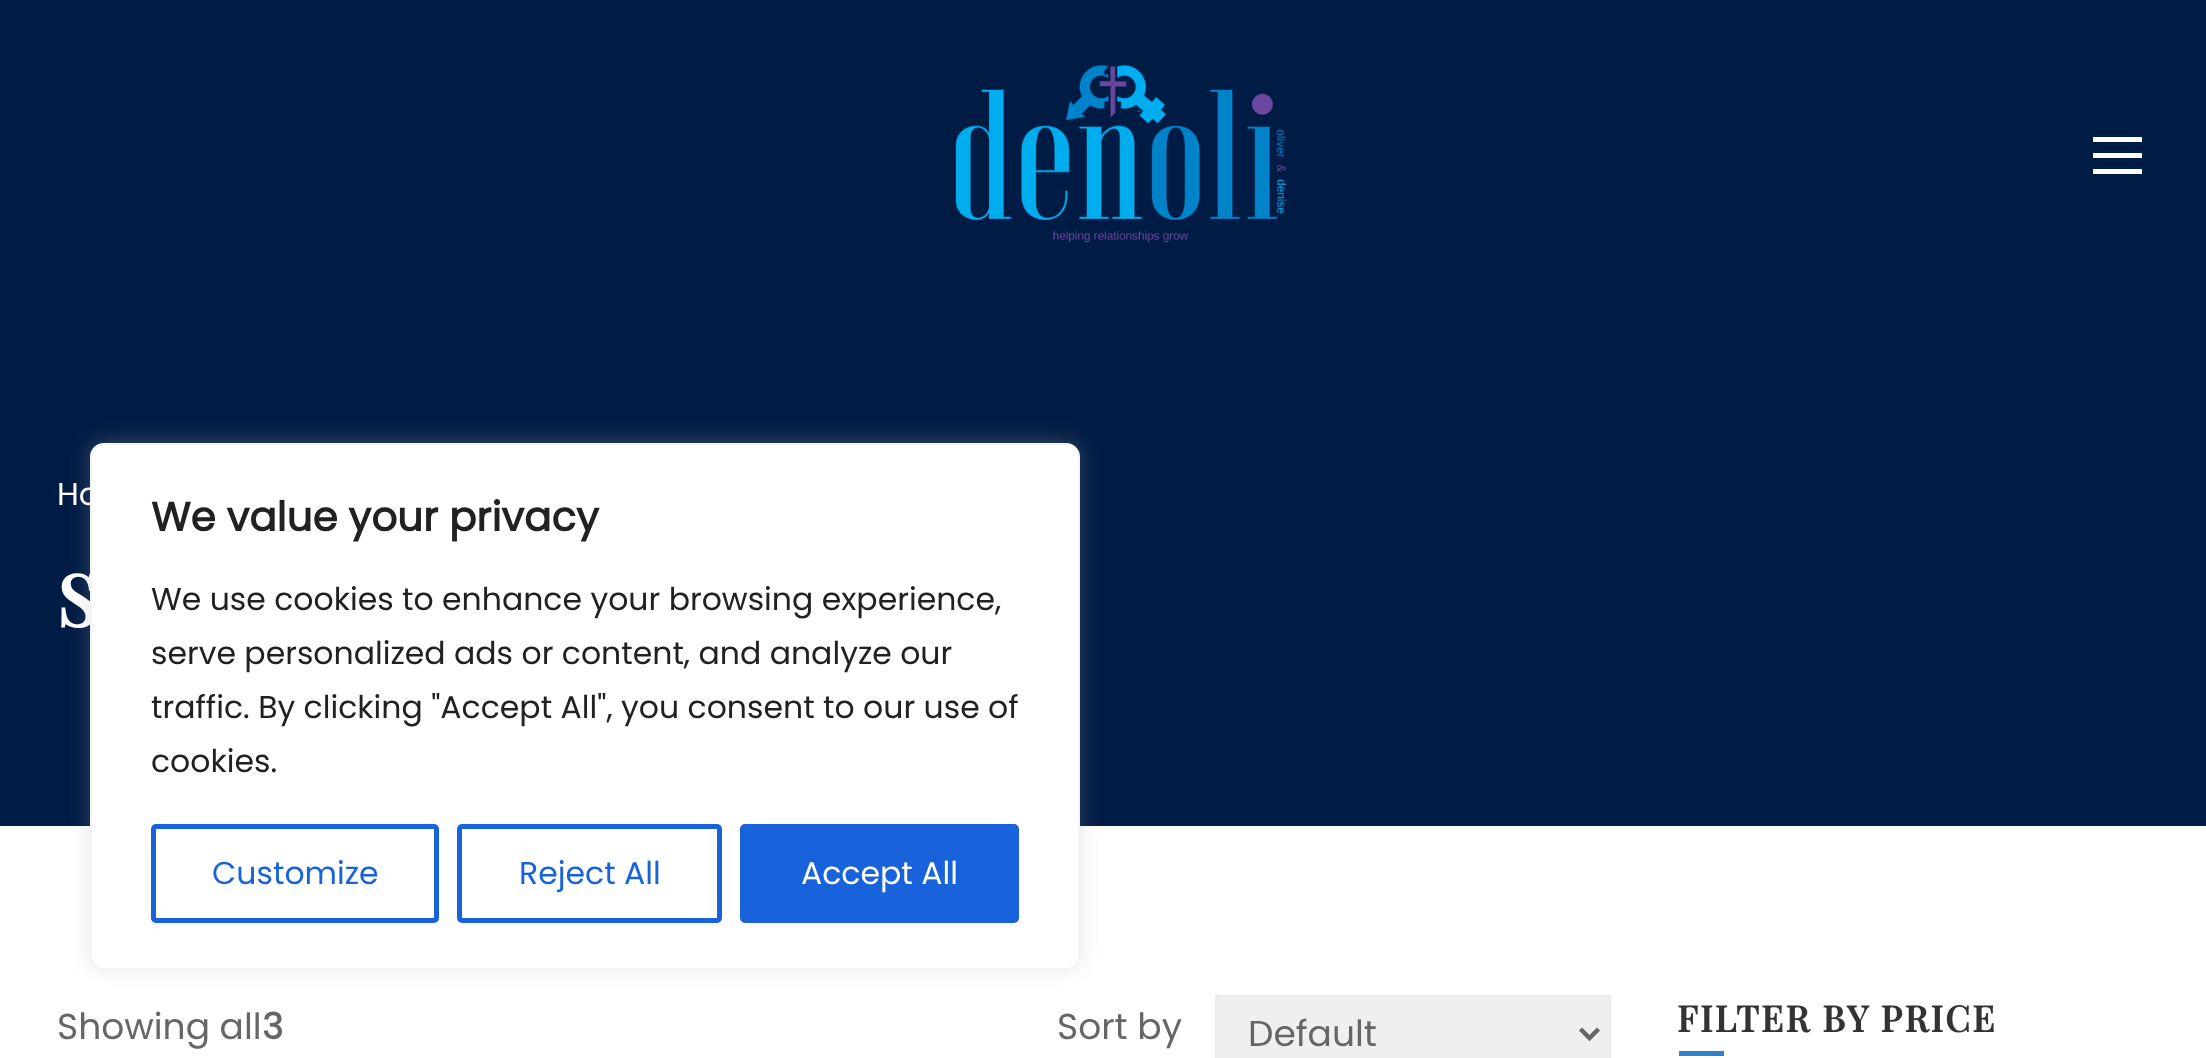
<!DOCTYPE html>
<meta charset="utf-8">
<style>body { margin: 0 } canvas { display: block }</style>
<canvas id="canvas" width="2206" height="1058"></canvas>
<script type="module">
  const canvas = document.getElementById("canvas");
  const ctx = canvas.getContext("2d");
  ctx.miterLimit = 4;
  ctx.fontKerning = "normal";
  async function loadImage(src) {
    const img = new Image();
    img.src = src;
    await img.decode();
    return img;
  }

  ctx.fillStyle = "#ffffff";
  ctx.fillRect(0, 0, 2206, 1058);
  ctx.fillStyle = "#001b44";
  ctx.fillRect(0, 0, 2206, 826);
  ctx.drawImage(await loadImage("img1.png"), 955, 64, 332, 179);
  ctx.fillStyle = "#ffffff";
  ctx.fillRect(2093, 137, 49, 5);
  ctx.fillRect(2093, 153, 49, 5);
  ctx.fillRect(2093, 169, 49, 5);
  ctx.font = "31.5px Poppins";
  ctx.fillText("Ho", 57, 505);
  ctx.letterSpacing = "4px";
  ctx.font = "bold 72px Playfair Display";
  ctx.fillText("S", 57, 627);
  ctx.letterSpacing = "0px";
  ctx.font = "36px Poppins";
  ctx.fillStyle = "#666666";
  ctx.fillText("Showing all", 57, 1039);
  ctx.font = "bold 36px Poppins";
  ctx.fillText("3", 262, 1039);
  ctx.font = "36px Poppins";
  ctx.fillText("Sort by", 1057, 1039);
  ctx.fillStyle = "#efefef";
  ctx.beginPath();
  ctx.rect(1216, 996, 394, 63);
  ctx.fill();
  ctx.strokeStyle = "#ebebeb";
  ctx.lineWidth = 2;
  ctx.stroke();
  ctx.beginPath();
  ctx.moveTo(1580.5, 1029);
  ctx.lineTo(1589.5, 1038);
  ctx.lineTo(1598.5, 1029);
  ctx.strokeStyle = "#666666";
  ctx.lineWidth = 4.5;
  ctx.stroke();
  ctx.fillStyle = "#666666";
  ctx.fillText("Default", 1248, 1046);
  ctx.letterSpacing = "2.2px";
  ctx.font = "bold 36px Playfair Display";
  ctx.fillStyle = "#333333";
  ctx.fillText("FILTER BY PRICE", 1677, 1032);
  ctx.fillStyle = "#2c83ca";
  ctx.fillRect(1679, 1051, 45, 5);
  ctx.fillStyle = "rgba(172, 171, 171, 0.3)";
  ctx.filter = "blur(11px)";
  ctx.beginPath();
  ctx.roundRect(90, 441, 990, 527, 14);
  ctx.fill();
  ctx.filter = "none";
  ctx.fillStyle = "#ffffff";
  ctx.beginPath();
  ctx.roundRect(91, 444, 988, 525, 13);
  ctx.fill();
  ctx.strokeStyle = "#f4f4f4";
  ctx.lineWidth = 2;
  ctx.stroke();
  ctx.letterSpacing = "0px";
  ctx.font = "bold 40.5px Poppins";
  ctx.fillStyle = "#212121";
  ctx.fillText("We value your privacy", 151, 531);
  ctx.font = "31.5px Poppins";
  ctx.fillText("We use cookies to enhance your browsing experience,", 151, 610);
  ctx.fillText("serve personalized ads or content, and analyze our", 151, 664);
  ctx.fillText("traffic. By clicking \"Accept All\", you consent to our use of", 151, 718);
  ctx.fillText("cookies.", 151, 772);
  ctx.beginPath();
  ctx.roundRect(153.5, 826.5, 283, 94, 2.5);
  ctx.strokeStyle = "#1863dc";
  ctx.lineWidth = 5;
  ctx.stroke();
  ctx.fillStyle = "#1863dc";
  ctx.fillText("Customize", 212, 884);
  ctx.beginPath();
  ctx.roundRect(459.5, 826.5, 260, 94, 2.5);
  ctx.stroke();
  ctx.fillText("Reject All", 519, 884);
  ctx.beginPath();
  ctx.roundRect(742.5, 826.5, 274, 94, 2.5);
  ctx.fill();
  ctx.stroke();
  ctx.fillStyle = "#ffffff";
  ctx.fillText("Accept All", 801, 884);
</script>
